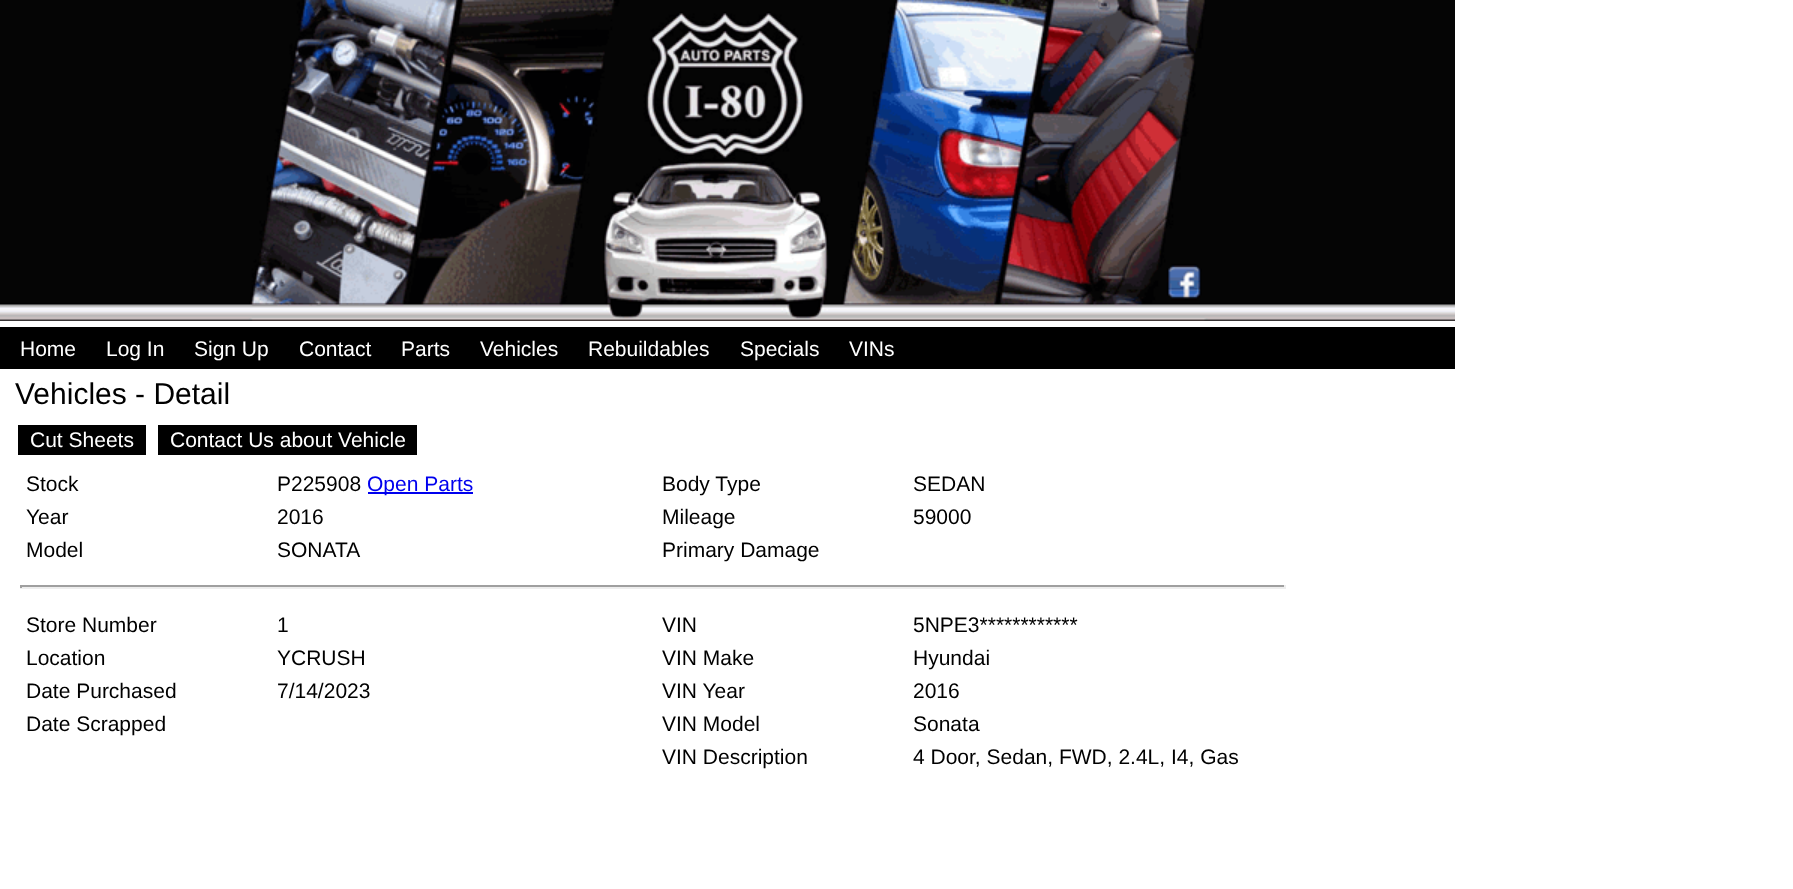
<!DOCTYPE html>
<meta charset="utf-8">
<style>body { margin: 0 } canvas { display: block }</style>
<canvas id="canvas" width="1793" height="889"></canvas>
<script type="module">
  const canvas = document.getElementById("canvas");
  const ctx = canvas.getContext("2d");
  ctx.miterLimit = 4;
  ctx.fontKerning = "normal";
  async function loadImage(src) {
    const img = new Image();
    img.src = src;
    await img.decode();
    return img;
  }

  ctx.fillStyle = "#ffffff";
  ctx.fillRect(0, 0, 1793, 889);
  ctx.drawImage(await loadImage("img1.png"), 0, 0, 1455, 321);
  ctx.fillStyle = "#000000";
  ctx.fillRect(0, 327, 1455, 42);
  ctx.font = "21px Liberation Sans";
  ctx.fillStyle = "#ffffff";
  ctx.fillText("Home", 20, 356);
  ctx.fillText("Log In", 106, 356);
  ctx.fillText("Sign Up", 194, 356);
  ctx.fillText("Contact", 299, 356);
  ctx.fillText("Parts", 401, 356);
  ctx.fillText("Vehicles", 480, 356);
  ctx.fillText("Rebuildables", 588, 356);
  ctx.fillText("Specials", 740, 356);
  ctx.fillText("VINs", 849, 356);
  ctx.font = "30px Liberation Sans";
  ctx.fillStyle = "#000000";
  ctx.fillText("Vehicles - Detail", 15, 404);
  ctx.fillRect(18, 425, 128, 30);
  ctx.font = "21px Liberation Sans";
  ctx.fillStyle = "#ffffff";
  ctx.fillText("Cut Sheets", 30, 447);
  ctx.fillStyle = "#000000";
  ctx.fillRect(158, 425, 259, 30);
  ctx.fillStyle = "#ffffff";
  ctx.fillText("Contact Us about Vehicle", 170, 447);
  ctx.fillStyle = "#000000";
  ctx.fillText("Stock", 26, 491);
  ctx.fillText("P225908", 277, 491);
  ctx.fillStyle = "#0000ee";
  ctx.fillRect(368, 492, 105, 2);
  ctx.fillText("Open Parts", 367, 491);
  ctx.fillStyle = "#000000";
  ctx.fillText("Year", 26, 524);
  ctx.fillText("2016", 277, 524);
  ctx.fillText("Model", 26, 557);
  ctx.fillText("SONATA", 277, 557);
  ctx.fillText("Body Type", 662, 491);
  ctx.fillText("SEDAN", 913, 491);
  ctx.fillText("Mileage", 662, 524);
  ctx.fillText("59000", 913, 524);
  ctx.fillText("Primary Damage", 662, 557);
  ctx.fillStyle = "#9f9f9f";
  ctx.fillRect(20, 585, 1266, 2);
  ctx.fillStyle = "#eeeeee";
  ctx.fillRect(1284, 585, 2, 3);
  ctx.fillRect(20, 587, 1266, 2);
  ctx.fillStyle = "#9f9f9f";
  ctx.fillRect(20, 585, 2, 3);
  ctx.fillStyle = "#000000";
  ctx.fillText("Store Number", 26, 632);
  ctx.fillText("1", 277, 632);
  ctx.fillText("Location", 26, 665);
  ctx.fillText("YCRUSH", 277, 665);
  ctx.fillText("Date Purchased", 26, 698);
  ctx.fillText("7/14/2023", 277, 698);
  ctx.fillText("Date Scrapped", 26, 731);
  ctx.fillText("VIN", 662, 632);
  ctx.fillText("5NPE3************", 913, 632);
  ctx.fillText("VIN Make", 662, 665);
  ctx.fillText("Hyundai", 913, 665);
  ctx.fillText("VIN Year", 662, 698);
  ctx.fillText("2016", 913, 698);
  ctx.fillText("VIN Model", 662, 731);
  ctx.fillText("Sonata", 913, 731);
  ctx.fillText("VIN Description", 662, 764);
  ctx.fillText("4 Door, Sedan, FWD, 2.4L, I4, Gas", 913, 764);
</script>
